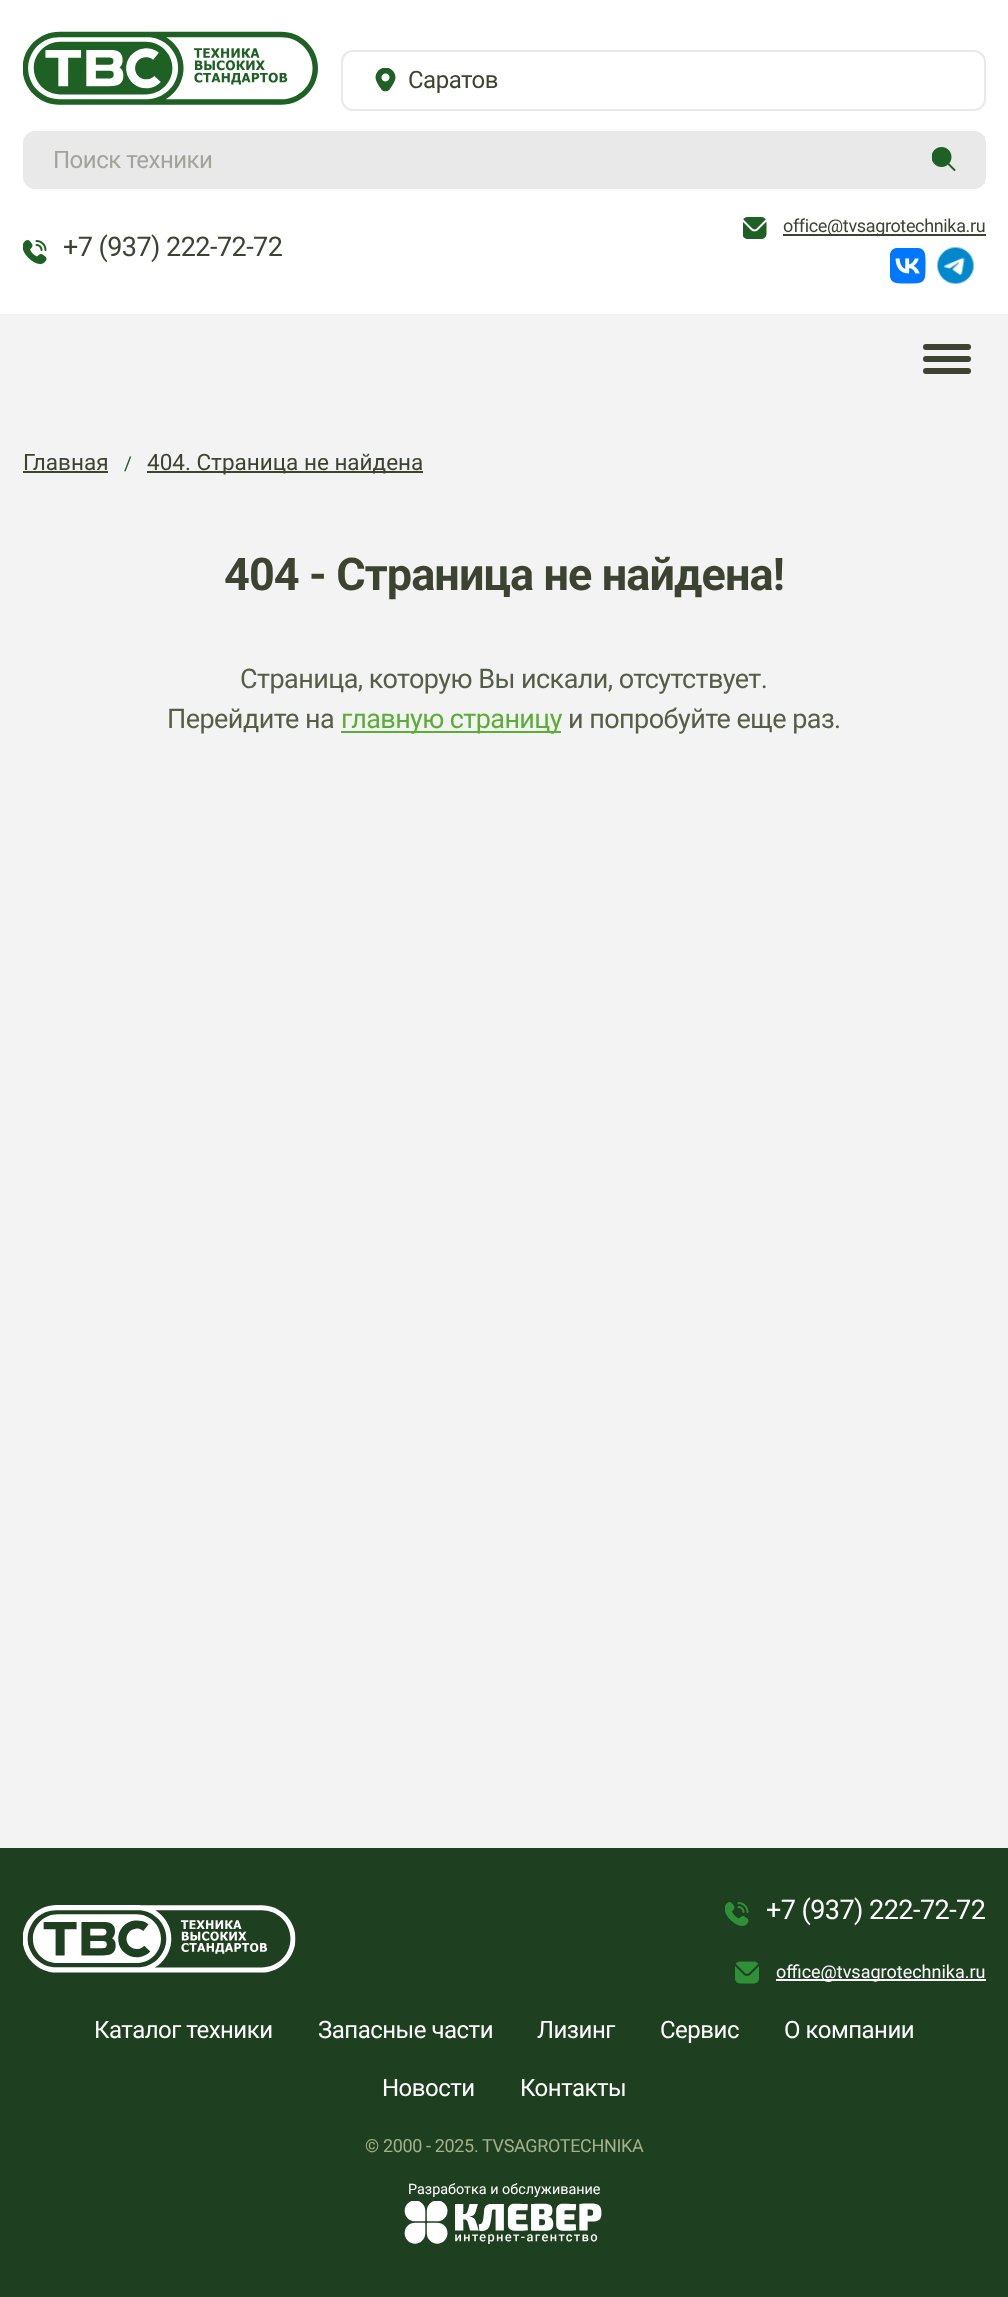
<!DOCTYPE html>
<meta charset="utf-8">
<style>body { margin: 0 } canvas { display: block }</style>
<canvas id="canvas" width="1008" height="2297"></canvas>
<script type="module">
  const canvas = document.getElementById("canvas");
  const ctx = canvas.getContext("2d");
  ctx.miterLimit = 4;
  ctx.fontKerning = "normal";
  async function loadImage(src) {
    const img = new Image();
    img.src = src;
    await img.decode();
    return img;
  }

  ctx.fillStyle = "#ffffff";
  ctx.fillRect(0, 0, 1008, 2297);
  ctx.drawImage(await loadImage("img1.png"), 23, 31, 295, 74);
  ctx.beginPath();
  ctx.roundRect(342, 51, 643, 59, 11);
  ctx.strokeStyle = "#e9e9e9";
  ctx.lineWidth = 2;
  ctx.stroke();
  ctx.drawImage(await loadImage("img2.png"), 375, 68, 21, 24);
  ctx.letterSpacing = "-0.5px";
  ctx.font = "24px Roboto";
  ctx.fillStyle = "#3d4331";
  ctx.fillText("Саратов", 408, 88);
  ctx.fillStyle = "#e9e9e9";
  ctx.beginPath();
  ctx.roundRect(23, 131, 963, 58, 12);
  ctx.fill();
  ctx.fillStyle = "#a1a49b";
  ctx.fillText("Поиск техники", 53, 168);
  ctx.drawImage(await loadImage("img3.png"), 932, 147, 24, 24);
  ctx.drawImage(await loadImage("img4.png"), 743, 217, 24, 22);
  ctx.fillStyle = "#3d4331";
  ctx.fillRect(783, 234, 203, 2);
  ctx.letterSpacing = "-0.35px";
  ctx.font = "18px Roboto";
  ctx.fillText("office@tvsagrotechnika.ru", 783, 232);
  ctx.drawImage(await loadImage("img5.png"), 890, 248, 36, 36);
  ctx.drawImage(await loadImage("img6.png"), 937, 247, 37, 37);
  ctx.drawImage(await loadImage("img7.png"), 23, 240, 24, 24);
  ctx.letterSpacing = "-0.55px";
  ctx.font = "27px Roboto";
  ctx.fillText("+7 (937) 222-72-72", 63, 256);
  ctx.fillStyle = "#f3f3f3";
  ctx.fillRect(0, 314, 1008, 1534);
  ctx.fillStyle = "#3d4331";
  ctx.beginPath();
  ctx.roundRect(923, 344, 48, 6, 3);
  ctx.fill();
  ctx.beginPath();
  ctx.roundRect(923, 356, 48, 6, 3);
  ctx.fill();
  ctx.beginPath();
  ctx.roundRect(923, 368, 48, 6, 3);
  ctx.fill();
  ctx.letterSpacing = "0px";
  ctx.font = "22.5px Roboto";
  ctx.fillText("Главная", 23, 470);
  ctx.fillRect(23, 471, 85, 2);
  ctx.font = "19px Roboto";
  ctx.fillStyle = "#1f6025";
  ctx.fillText("/", 124, 470);
  ctx.fillStyle = "#3d4331";
  ctx.fillRect(147, 471, 276, 2);
  ctx.font = "22.5px Roboto";
  ctx.fillText("404. Страница не найдена", 147, 470);
  ctx.letterSpacing = "-0.9px";
  ctx.font = "bold 45px Roboto";
  ctx.fillText("404 - Страница не найдена!", 224, 590);
  ctx.letterSpacing = "-0.55px";
  ctx.font = "27px Roboto";
  ctx.fillStyle = "#565e47";
  ctx.fillText("Страница, которую Вы искали, отсутствует.", 240, 688);
  ctx.fillText("Перейдите на", 167, 728);
  ctx.fillStyle = "#5aad35";
  ctx.fillRect(341, 731, 220, 2);
  ctx.letterSpacing = "-0.6px";
  ctx.fillText("главную страницу", 341, 728);
  ctx.letterSpacing = "-0.55px";
  ctx.fillStyle = "#565e47";
  ctx.fillText("и попробуйте еще раз.", 568, 728);
  ctx.fillStyle = "#1e3f20";
  ctx.fillRect(0, 1848, 1008, 449);
  ctx.drawImage(await loadImage("img8.png"), 23, 1905, 273, 68);
  ctx.drawImage(await loadImage("img9.png"), 725, 1902, 24, 24);
  ctx.fillStyle = "#ffffff";
  ctx.fillText("+7 (937) 222-72-72", 766, 1919);
  ctx.drawImage(await loadImage("img10.png"), 735, 1961, 24, 23);
  ctx.fillRect(776, 1979, 210, 2);
  ctx.letterSpacing = "0px";
  ctx.font = "18px Roboto";
  ctx.fillText("office@tvsagrotechnika.ru", 776, 1978);
  ctx.letterSpacing = "-0.5px";
  ctx.font = "24px Roboto";
  ctx.fillText("Каталог техники", 94, 2038);
  ctx.fillText("Запасные части", 318, 2038);
  ctx.fillText("Лизинг", 537, 2038);
  ctx.fillText("Сервис", 660, 2038);
  ctx.fillText("О компании", 784, 2038);
  ctx.fillText("Новости", 382, 2096);
  ctx.fillText("Контакты", 520, 2096);
  ctx.letterSpacing = "-0.35px";
  ctx.font = "18px Roboto";
  ctx.fillStyle = "#a3b18a";
  ctx.fillText("© 2000 - 2025. TVSAGROTECHNIKA", 365, 2152);
  ctx.letterSpacing = "0px";
  ctx.font = "14.4px Roboto";
  ctx.fillStyle = "#ffffff";
  ctx.fillText("Разработка и обслуживание", 408, 2194);
  ctx.drawImage(await loadImage("img11.png"), 404, 2201, 198, 43);
</script>
